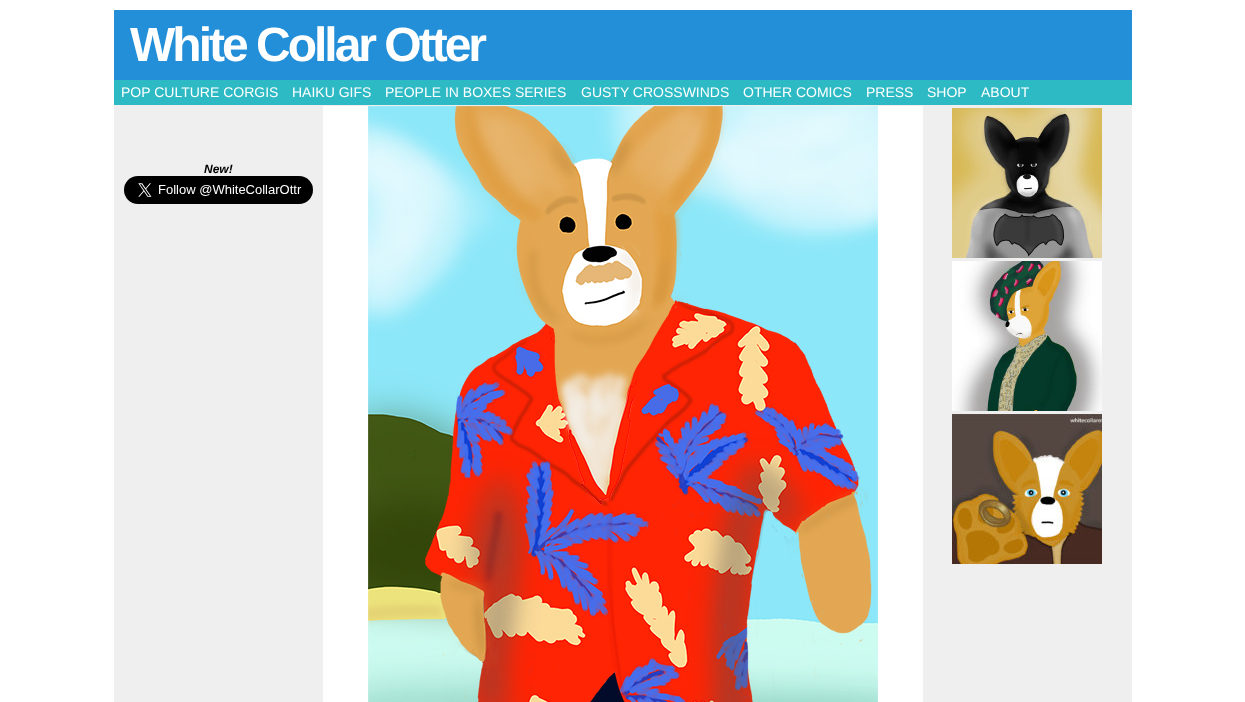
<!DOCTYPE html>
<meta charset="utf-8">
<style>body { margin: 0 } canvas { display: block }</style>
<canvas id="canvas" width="1245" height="702"></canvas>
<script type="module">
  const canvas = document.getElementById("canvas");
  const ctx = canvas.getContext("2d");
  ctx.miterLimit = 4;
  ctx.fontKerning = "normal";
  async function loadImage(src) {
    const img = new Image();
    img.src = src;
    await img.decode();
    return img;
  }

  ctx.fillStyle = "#ffffff";
  ctx.fillRect(0, 0, 1245, 702);
  ctx.fillStyle = "#228fd8";
  ctx.fillRect(114, 10, 1018, 70);
  ctx.letterSpacing = "-3px";
  ctx.font = "bold 48px Liberation Sans";
  ctx.fillStyle = "#ffffff";
  ctx.fillText("White Collar Otter", 130, 61);
  ctx.fillStyle = "#2dbac4";
  ctx.fillRect(114, 80, 1018, 25);
  ctx.letterSpacing = "0px";
  ctx.font = "14px Liberation Sans";
  ctx.fillStyle = "#ffffff";
  ctx.fillText("POP CULTURE CORGIS", 121, 97);
  ctx.fillText("HAIKU GIFS", 292, 97);
  ctx.fillText("PEOPLE IN BOXES SERIES", 385, 97);
  ctx.fillText("GUSTY CROSSWINDS", 581, 97);
  ctx.fillText("OTHER COMICS", 743, 97);
  ctx.fillText("PRESS", 866, 97);
  ctx.fillText("SHOP", 927, 97);
  ctx.fillText("ABOUT", 981, 97);
  ctx.fillStyle = "#efefef";
  ctx.fillRect(114, 105, 1018, 597);
  ctx.font = "italic bold 12px Liberation Sans";
  ctx.fillStyle = "#000000";
  ctx.fillText("New!", 204, 173);
  ctx.drawImage(await loadImage("img1.png"), 124, 176, 189, 28);
  ctx.fillStyle = "#ffffff";
  ctx.fillRect(323, 106, 600, 596);
  ctx.drawImage(await loadImage("img2.png"), 368, 106, 510, 596);
  ctx.drawImage(await loadImage("img3.png"), 952, 108, 150, 150);
  ctx.drawImage(await loadImage("img4.png"), 952, 261, 150, 150);
  ctx.drawImage(await loadImage("img5.png"), 952, 414, 150, 150);
</script>
